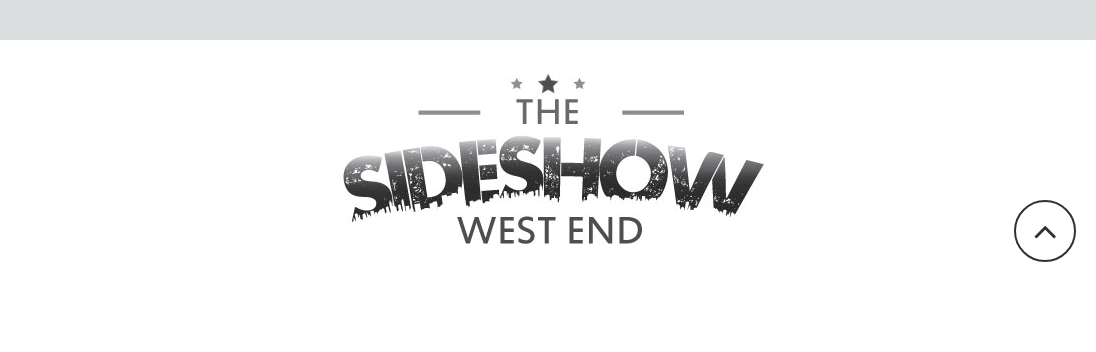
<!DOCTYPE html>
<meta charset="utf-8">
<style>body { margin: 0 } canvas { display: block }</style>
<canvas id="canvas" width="1096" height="352"></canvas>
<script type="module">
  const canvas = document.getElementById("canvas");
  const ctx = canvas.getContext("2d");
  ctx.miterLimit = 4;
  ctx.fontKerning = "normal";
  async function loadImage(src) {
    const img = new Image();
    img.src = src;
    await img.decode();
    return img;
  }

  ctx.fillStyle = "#dbdedf";
  ctx.fillRect(0, 0, 1096, 352);
  ctx.fillStyle = "#ffffff";
  ctx.fillRect(0, 40, 1096, 312);
  ctx.drawImage(await loadImage("img1.png"), 338, 68, 431, 176);
  ctx.beginPath();
  ctx.arc(1045, 231, 30, 0, Math.PI * 2);
  ctx.strokeStyle = "#2f3133";
  ctx.lineWidth = 2;
  ctx.stroke();
  ctx.drawImage(await loadImage("img2.png"), 1034, 226, 22, 13);
</script>
